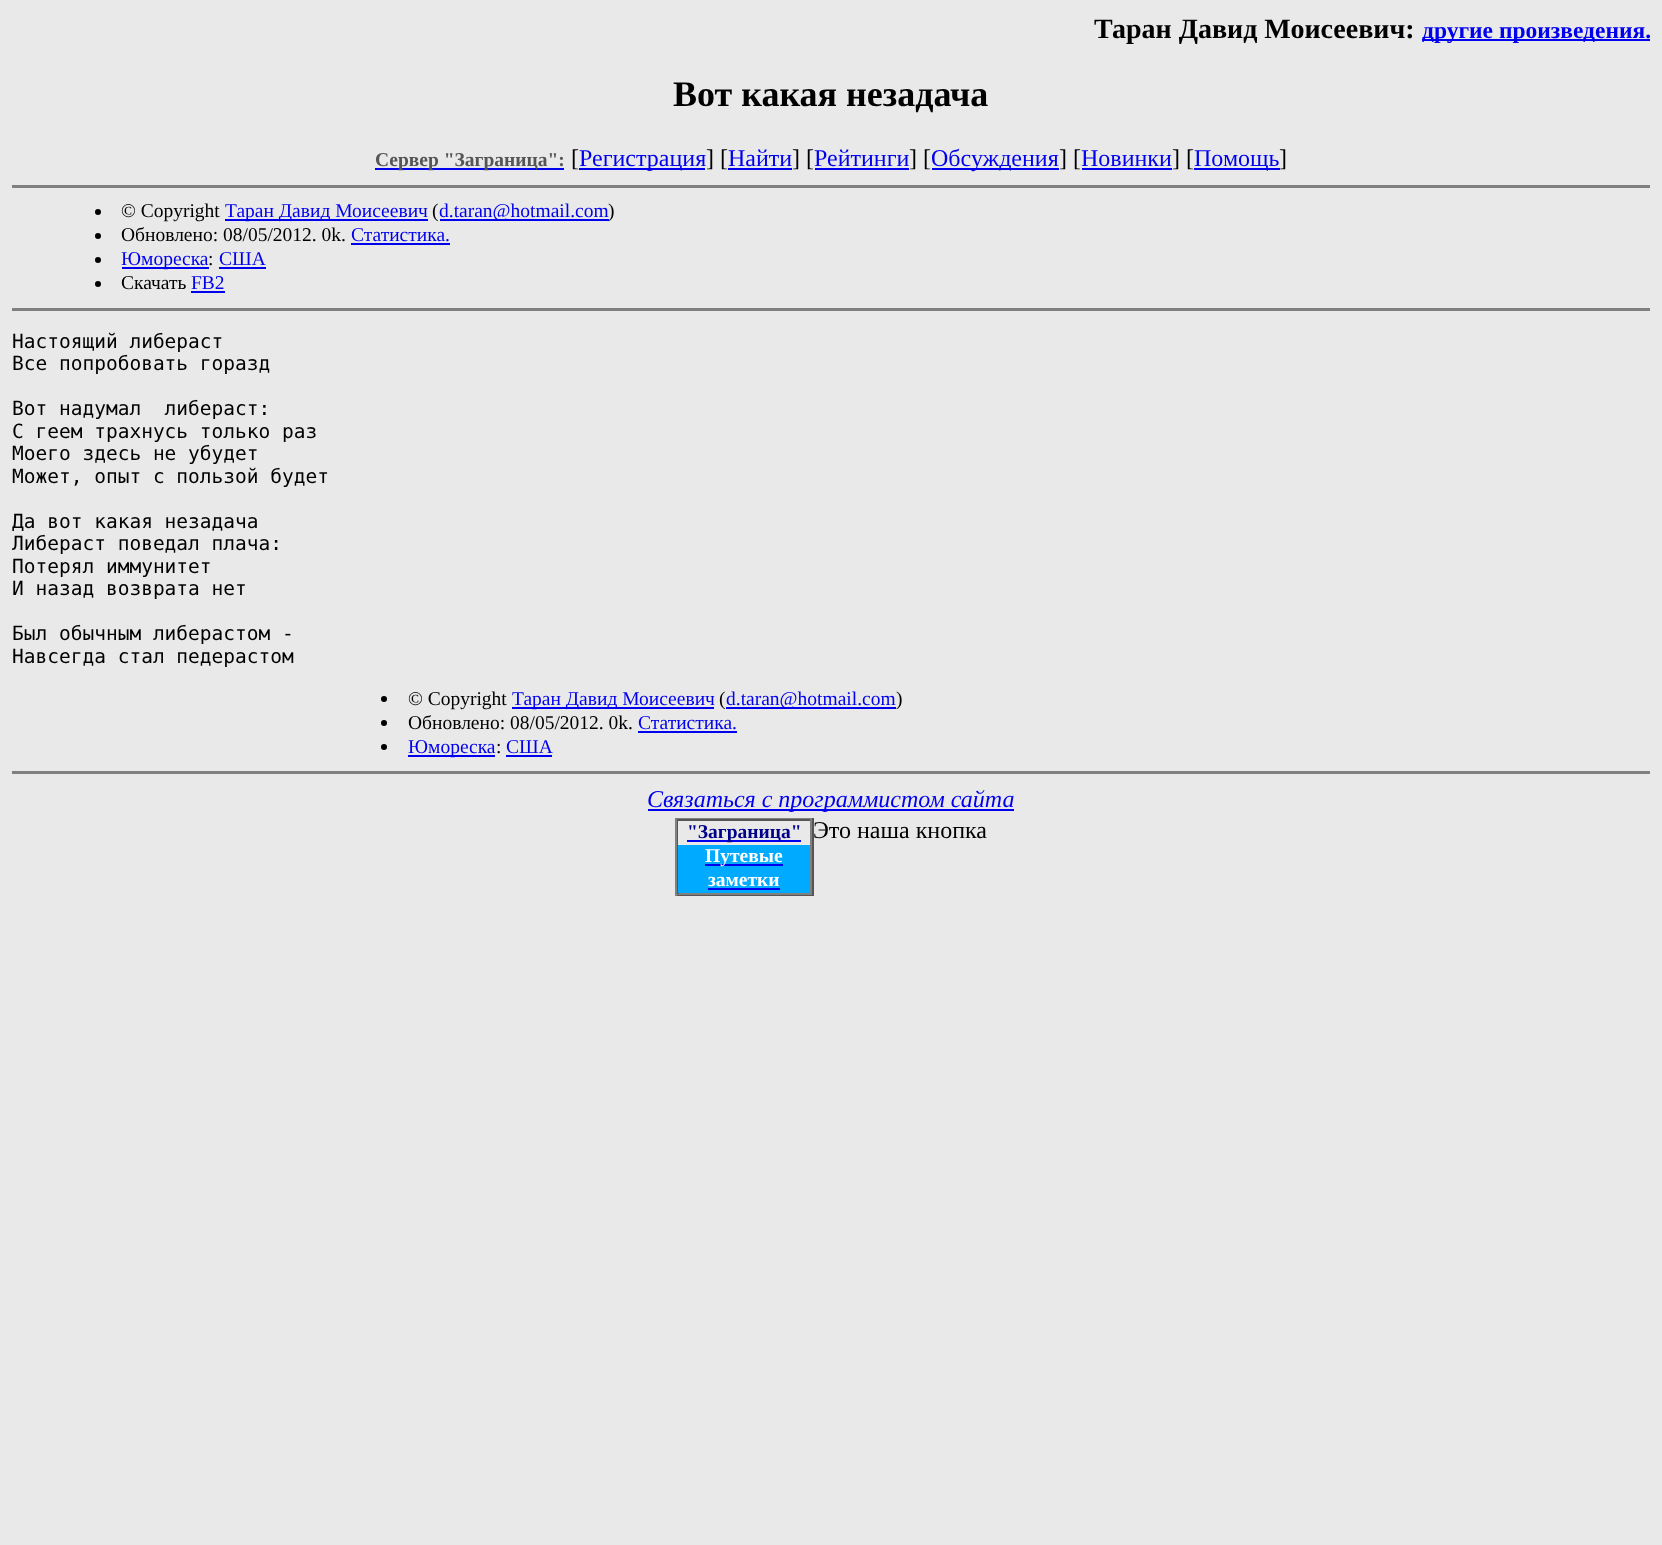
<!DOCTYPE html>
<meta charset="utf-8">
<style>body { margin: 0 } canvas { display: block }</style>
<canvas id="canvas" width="1662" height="1545"></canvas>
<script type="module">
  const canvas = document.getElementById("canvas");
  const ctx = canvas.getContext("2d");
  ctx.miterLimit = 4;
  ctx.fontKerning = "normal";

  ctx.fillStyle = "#e9e9e9";
  ctx.fillRect(0, 0, 1662, 1545);
  ctx.font = "bold 28px Liberation Serif";
  ctx.fillStyle = "#000000";
  ctx.fillText("Таран Давид Моисеевич:", 1094, 38);
  ctx.fillStyle = "#0000ee";
  ctx.fillRect(1422, 39, 228, 2);
  ctx.font = "bold 23.5px Liberation Serif";
  ctx.fillText("другие произведения.", 1422, 38);
  ctx.font = "bold 36px Liberation Serif";
  ctx.fillStyle = "#000000";
  ctx.fillText("Вот какая незадача", 673, 106);
  ctx.fillStyle = "#0000ee";
  ctx.fillRect(375, 168, 189, 2);
  ctx.font = "bold 19.5px Liberation Serif";
  ctx.fillStyle = "#555555";
  ctx.fillText("Сервер \"Заграница\":", 375, 166);
  ctx.font = "24px Liberation Serif";
  ctx.fillStyle = "#000000";
  ctx.fillText("[", 571, 166);
  ctx.fillStyle = "#0000ee";
  ctx.fillRect(579, 168, 126, 2);
  ctx.fillText("Регистрация", 579, 166);
  ctx.fillStyle = "#000000";
  ctx.fillText("] [", 706, 166);
  ctx.fillStyle = "#0000ee";
  ctx.fillText("Найти", 728, 166);
  ctx.fillStyle = "#000000";
  ctx.fillText("] [", 792, 166);
  ctx.fillStyle = "#0000ee";
  ctx.fillRect(728, 168, 64, 2);
  ctx.fillText("Рейтинги", 814, 166);
  ctx.fillStyle = "#000000";
  ctx.fillText("] [", 909, 166);
  ctx.fillStyle = "#0000ee";
  ctx.fillRect(815, 168, 94, 2);
  ctx.fillRect(932, 168, 127, 2);
  ctx.fillText("Обсуждения", 931, 166);
  ctx.fillStyle = "#000000";
  ctx.fillText("] [", 1059, 166);
  ctx.fillStyle = "#0000ee";
  ctx.fillText("Новинки", 1081, 166);
  ctx.fillStyle = "#000000";
  ctx.fillText("] [", 1172, 166);
  ctx.fillStyle = "#0000ee";
  ctx.fillRect(1082, 168, 90, 2);
  ctx.fillRect(1194, 168, 86, 2);
  ctx.fillText("Помощь", 1194, 166);
  ctx.fillStyle = "#000000";
  ctx.fillText("]", 1279, 166);
  ctx.fillStyle = "#808080";
  ctx.fillRect(12, 185, 1638, 3);
  ctx.fillStyle = "#000000";
  ctx.beginPath();
  ctx.arc(98, 212, 3, 0, Math.PI * 2);
  ctx.fill();
  ctx.font = "19.5px Liberation Serif";
  ctx.fillText("© Copyright", 121, 217);
  ctx.fillStyle = "#0000ee";
  ctx.fillRect(225, 219, 203, 2);
  ctx.fillText("Таран Давид Моисеевич", 225, 217);
  ctx.fillStyle = "#000000";
  ctx.fillText("(", 432, 217);
  ctx.fillStyle = "#0000ee";
  ctx.fillRect(440, 219, 169, 2);
  ctx.fillText("d.taran@hotmail.com", 439, 217);
  ctx.fillStyle = "#000000";
  ctx.fillText(")", 608, 217);
  ctx.beginPath();
  ctx.arc(98, 236, 3, 0, Math.PI * 2);
  ctx.fill();
  ctx.fillText("Обновлено: 08/05/2012. 0k.", 121, 241);
  ctx.fillStyle = "#0000ee";
  ctx.fillText("Статистика.", 351, 241);
  ctx.fillRect(351, 243, 99, 2);
  ctx.fillStyle = "#000000";
  ctx.beginPath();
  ctx.arc(98, 260, 3, 0, Math.PI * 2);
  ctx.fill();
  ctx.fillStyle = "#0000ee";
  ctx.fillRect(122, 267, 87, 2);
  ctx.fillText("Юмореска", 121, 265);
  ctx.fillStyle = "#000000";
  ctx.fillText(":", 208, 265);
  ctx.fillStyle = "#0000ee";
  ctx.fillText("США", 219, 265);
  ctx.fillRect(219, 267, 47, 2);
  ctx.fillStyle = "#000000";
  ctx.beginPath();
  ctx.arc(98, 284, 3, 0, Math.PI * 2);
  ctx.fill();
  ctx.fillText("Скачать", 121, 289);
  ctx.fillStyle = "#0000ee";
  ctx.fillText("FB2", 191, 289);
  ctx.fillRect(191, 291, 34, 2);
  ctx.fillStyle = "#808080";
  ctx.fillRect(12, 308, 1638, 3);
  ctx.font = "19.5px DejaVu Sans Mono";
  ctx.fillStyle = "#000000";
  ctx.fillText("Настоящий либераст", 12, 348);
  ctx.fillText("Все попробовать горазд", 12, 370);
  ctx.fillText("Вот надумал  либераст:", 12, 415);
  ctx.fillText("С геем трахнусь только раз", 12, 438);
  ctx.fillText("Моего здесь не убудет", 12, 460);
  ctx.fillText("Может, опыт с пользой будет", 12, 483);
  ctx.fillText("Да вот какая незадача", 12, 528);
  ctx.fillText("Либераст поведал плача:", 12, 550);
  ctx.fillText("Потерял иммунитет", 12, 573);
  ctx.fillText("И назад возврата нет", 12, 595);
  ctx.fillText("Был обычным либерастом -", 12, 640);
  ctx.fillText("Навсегда стал педерастом", 12, 663);
  ctx.beginPath();
  ctx.arc(384, 699, 3, 0, Math.PI * 2);
  ctx.fill();
  ctx.font = "19.5px Liberation Serif";
  ctx.fillText("© Copyright", 408, 705);
  ctx.fillStyle = "#0000ee";
  ctx.fillRect(512, 707, 202, 2);
  ctx.fillText("Таран Давид Моисеевич", 512, 705);
  ctx.fillStyle = "#000000";
  ctx.fillText("(", 719, 705);
  ctx.fillStyle = "#0000ee";
  ctx.fillRect(726, 707, 170, 2);
  ctx.fillText("d.taran@hotmail.com", 726, 705);
  ctx.fillStyle = "#000000";
  ctx.fillText(")", 896, 705);
  ctx.beginPath();
  ctx.arc(384, 723, 3, 0, Math.PI * 2);
  ctx.fill();
  ctx.fillText("Обновлено: 08/05/2012. 0k.", 408, 729);
  ctx.fillStyle = "#0000ee";
  ctx.fillText("Статистика.", 638, 729);
  ctx.fillRect(638, 731, 99, 2);
  ctx.fillStyle = "#000000";
  ctx.beginPath();
  ctx.arc(384, 747, 3, 0, Math.PI * 2);
  ctx.fill();
  ctx.fillStyle = "#0000ee";
  ctx.fillRect(408, 755, 87, 2);
  ctx.fillText("Юмореска", 408, 753);
  ctx.fillStyle = "#000000";
  ctx.fillText(":", 496, 753);
  ctx.fillStyle = "#0000ee";
  ctx.fillText("США", 506, 753);
  ctx.fillRect(506, 755, 46, 2);
  ctx.fillStyle = "#808080";
  ctx.fillRect(12, 771, 1638, 3);
  ctx.fillStyle = "#0000ee";
  ctx.fillRect(648, 809, 366, 2);
  ctx.font = "italic 24px Liberation Serif";
  ctx.fillText("Связаться с программистом сайта", 647, 807);
  ctx.fillStyle = "#808080";
  ctx.fillRect(675, 818, 138, 1);
  ctx.fillStyle = "#555555";
  ctx.fillRect(812, 818, 2, 78);
  ctx.fillRect(675, 894, 138, 2);
  ctx.fillStyle = "#808080";
  ctx.fillRect(675, 818, 2, 78);
  ctx.fillStyle = "#555555";
  ctx.fillRect(677, 819, 135, 2);
  ctx.fillStyle = "#808080";
  ctx.fillRect(810, 819, 2, 75);
  ctx.fillRect(677, 893, 135, 2);
  ctx.fillStyle = "#555555";
  ctx.fillRect(677, 819, 2, 75);
  ctx.fillStyle = "#e9e9e9";
  ctx.fillRect(678, 821, 1, 24);
  ctx.fillStyle = "#0000ee";
  ctx.fillRect(687, 840, 114, 2);
  ctx.font = "bold 19.5px Liberation Serif";
  ctx.fillStyle = "#000088";
  ctx.fillText("\"Заграница\"", 687, 838);
  ctx.fillStyle = "#00aaff";
  ctx.fillRect(678, 845, 132, 48);
  ctx.fillStyle = "#0000ee";
  ctx.fillRect(705, 864, 78, 2);
  ctx.fillStyle = "#ffffff";
  ctx.fillText("Путевые", 705, 862);
  ctx.fillText("заметки", 708, 886);
  ctx.fillStyle = "#0000ee";
  ctx.fillRect(708, 888, 72, 2);
  ctx.font = "24px Liberation Serif";
  ctx.fillStyle = "#000000";
  ctx.fillText("Это наша кнопка", 813, 838);
</script>
